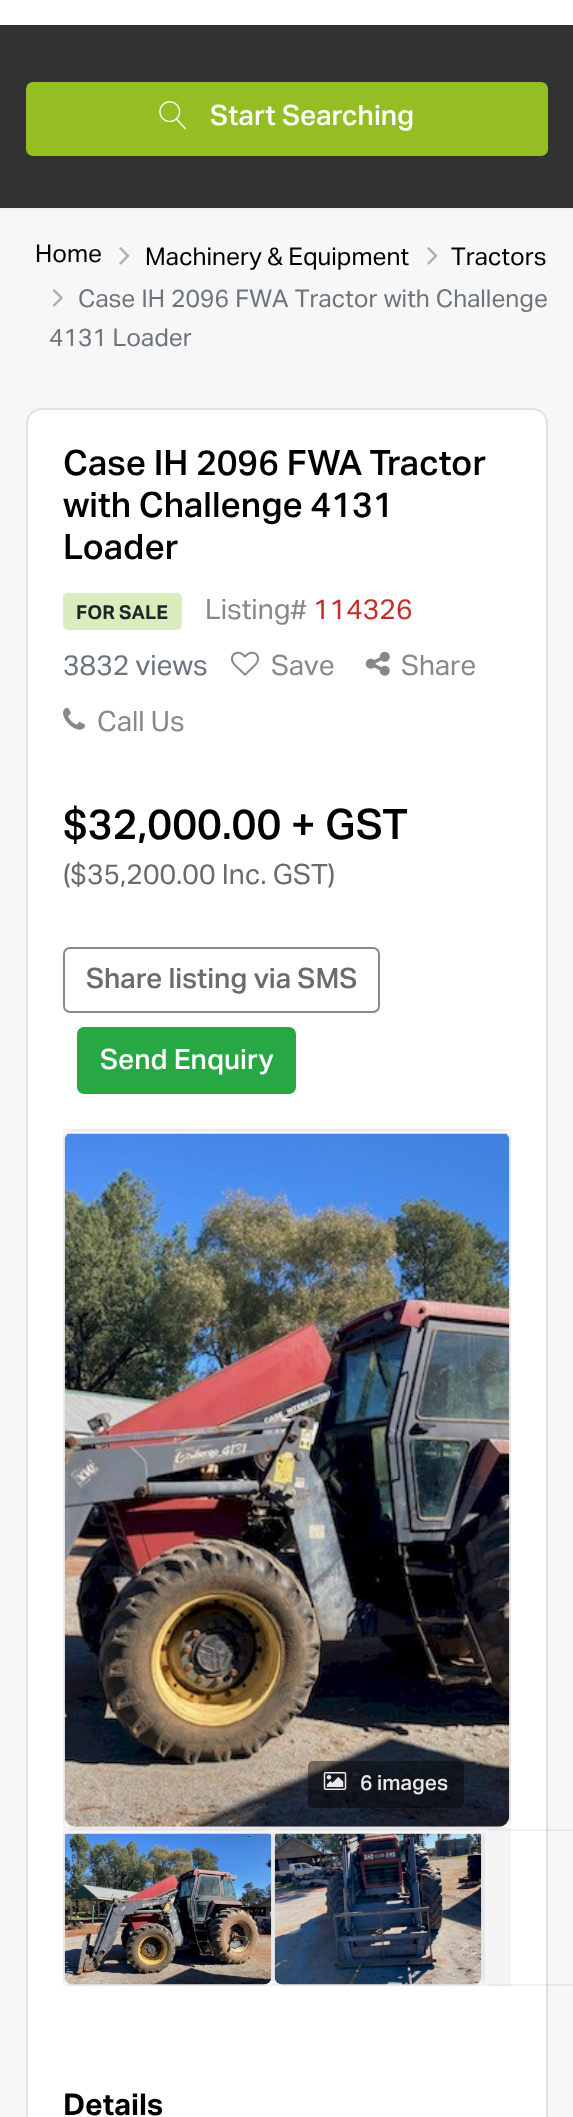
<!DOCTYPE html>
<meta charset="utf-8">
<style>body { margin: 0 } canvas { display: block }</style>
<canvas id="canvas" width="573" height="2117"></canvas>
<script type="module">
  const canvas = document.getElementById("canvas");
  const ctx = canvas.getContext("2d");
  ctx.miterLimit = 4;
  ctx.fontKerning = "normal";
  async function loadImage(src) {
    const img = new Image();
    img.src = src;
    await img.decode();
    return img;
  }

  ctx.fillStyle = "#f7f7f8";
  ctx.fillRect(0, 0, 573, 2117);
  ctx.fillStyle = "#ffffff";
  ctx.fillRect(0, 0, 573, 25);
  ctx.fillStyle = "#323232";
  ctx.fillRect(0, 25, 573, 183);
  ctx.fillStyle = "#efefef";
  ctx.fillRect(0, 208, 573, 2);
  ctx.fillStyle = "#95be24";
  ctx.beginPath();
  ctx.roundRect(26, 82, 522, 74, 7);
  ctx.fill();
  ctx.drawImage(await loadImage("img1.png"), 159, 101, 27, 29);
  ctx.font = "500 28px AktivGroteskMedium";
  ctx.fillStyle = "#ffffff";
  ctx.fillText("Start Searching", 210, 125);
  ctx.font = "24.5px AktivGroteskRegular";
  ctx.fillStyle = "#000000";
  ctx.fillText("Home", 35, 262);
  ctx.drawImage(await loadImage("img2.png"), 119, 247, 11, 18);
  ctx.fillText("Machinery & Equipment", 145, 265);
  ctx.drawImage(await loadImage("img2.png"), 427, 247, 11, 18);
  ctx.fillText("Tractors", 451, 265);
  ctx.drawImage(await loadImage("img3.png"), 52, 289, 11, 18);
  ctx.wordSpacing = "0.75px";
  ctx.fillStyle = "#6c757d";
  ctx.fillText("Case IH 2096 FWA Tractor with Challenge", 78, 307);
  ctx.wordSpacing = "0px";
  ctx.fillText("4131 Loader", 49, 346);
  ctx.fillStyle = "#ffffff";
  ctx.beginPath();
  ctx.roundRect(27, 409, 520, 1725, 15);
  ctx.fill();
  ctx.strokeStyle = "#e1e1e1";
  ctx.lineWidth = 2;
  ctx.stroke();
  ctx.font = "500 35px AktivGroteskMedium";
  ctx.fillStyle = "#000000";
  ctx.fillText("Case IH 2096 FWA Tractor", 63, 475);
  ctx.fillText("with Challenge 4131", 63, 517);
  ctx.fillText("Loader", 63, 559);
  ctx.fillStyle = "#daedbf";
  ctx.beginPath();
  ctx.roundRect(64, 594, 117, 35, 4);
  ctx.fill();
  ctx.strokeStyle = "#daedbf";
  ctx.stroke();
  ctx.font = "bold 19.25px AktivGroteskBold";
  ctx.fillStyle = "#212529";
  ctx.fillText("FOR SALE", 76, 619);
  ctx.font = "28px AktivGroteskRegular";
  ctx.fillStyle = "#888888";
  ctx.fillText("Listing#", 205, 619);
  ctx.fillStyle = "#c52d29";
  ctx.fillText("114326", 313, 619);
  ctx.fillStyle = "#6c757d";
  ctx.fillText("3832 views", 63, 675);
  ctx.drawImage(await loadImage("img4.png"), 231, 651, 28, 25);
  ctx.fillStyle = "#888888";
  ctx.fillText("Save", 271, 675);
  ctx.drawImage(await loadImage("img5.png"), 365, 651, 25, 25);
  ctx.fillText("Share", 401, 675);
  ctx.drawImage(await loadImage("img6.png"), 63, 707, 22, 23);
  ctx.fillText("Call Us", 97, 731);
  ctx.font = "500 42px AktivGroteskMedium";
  ctx.fillStyle = "#000000";
  ctx.fillText("$32,000.00 + GST", 63, 839);
  ctx.font = "28px AktivGroteskRegular";
  ctx.fillStyle = "#6b6b6b";
  ctx.fillText("($35,200.00 Inc. GST)", 63, 884);
  ctx.beginPath();
  ctx.roundRect(64, 948, 315, 64, 6);
  ctx.strokeStyle = "#898989";
  ctx.stroke();
  ctx.font = "500 28px AktivGroteskMedium";
  ctx.fillText("Share listing via SMS", 86, 988);
  ctx.fillStyle = "#28a745";
  ctx.beginPath();
  ctx.roundRect(78, 1028, 217, 65, 6);
  ctx.fill();
  ctx.strokeStyle = "#28a745";
  ctx.stroke();
  ctx.fillStyle = "#ffffff";
  ctx.fillText("Send Enquiry", 100, 1069);
  ctx.fillStyle = "#f6f6f6";
  ctx.beginPath();
  ctx.roundRect(63, 1129, 448, 700, 12);
  ctx.fill();
  ctx.strokeStyle = "rgba(0, 0, 0, 0.05)";
  ctx.strokeRect(64, 1130, 446, 698);
  ctx.drawImage(await loadImage("img7.png"), 64, 1133, 446, 694);
  ctx.fillStyle = "rgba(0, 0, 0, 0.4)";
  ctx.beginPath();
  ctx.roundRect(308, 1761, 156, 47, 5);
  ctx.fill();
  ctx.drawImage(await loadImage("img8.png"), 323, 1772, 24, 18);
  ctx.font = "500 21px AktivGroteskMedium";
  ctx.fillStyle = "#e7e8e8";
  ctx.fillText("6 images", 360, 1790);
  ctx.fillStyle = "#f5f5f5";
  ctx.beginPath();
  ctx.roundRect(63, 1829, 210, 157, 9);
  ctx.fill();
  ctx.strokeRect(64, 1830, 208, 155);
  ctx.drawImage(await loadImage("img9.png"), 64, 1833, 208, 152);
  ctx.beginPath();
  ctx.roundRect(273, 1829, 210, 157, 9);
  ctx.fill();
  ctx.strokeRect(274, 1830, 208, 155);
  ctx.drawImage(await loadImage("img10.png"), 274, 1833, 208, 152);
  ctx.beginPath();
  ctx.roundRect(483, 1829, 28, 157, [9, 0, 0, 9]);
  ctx.fill();
  ctx.strokeRect(484, 1830, 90, 155);
  ctx.font = "bold 30px AktivGroteskBold";
  ctx.fillStyle = "#000000";
  ctx.fillText("Details", 63, 2115);
</script>
